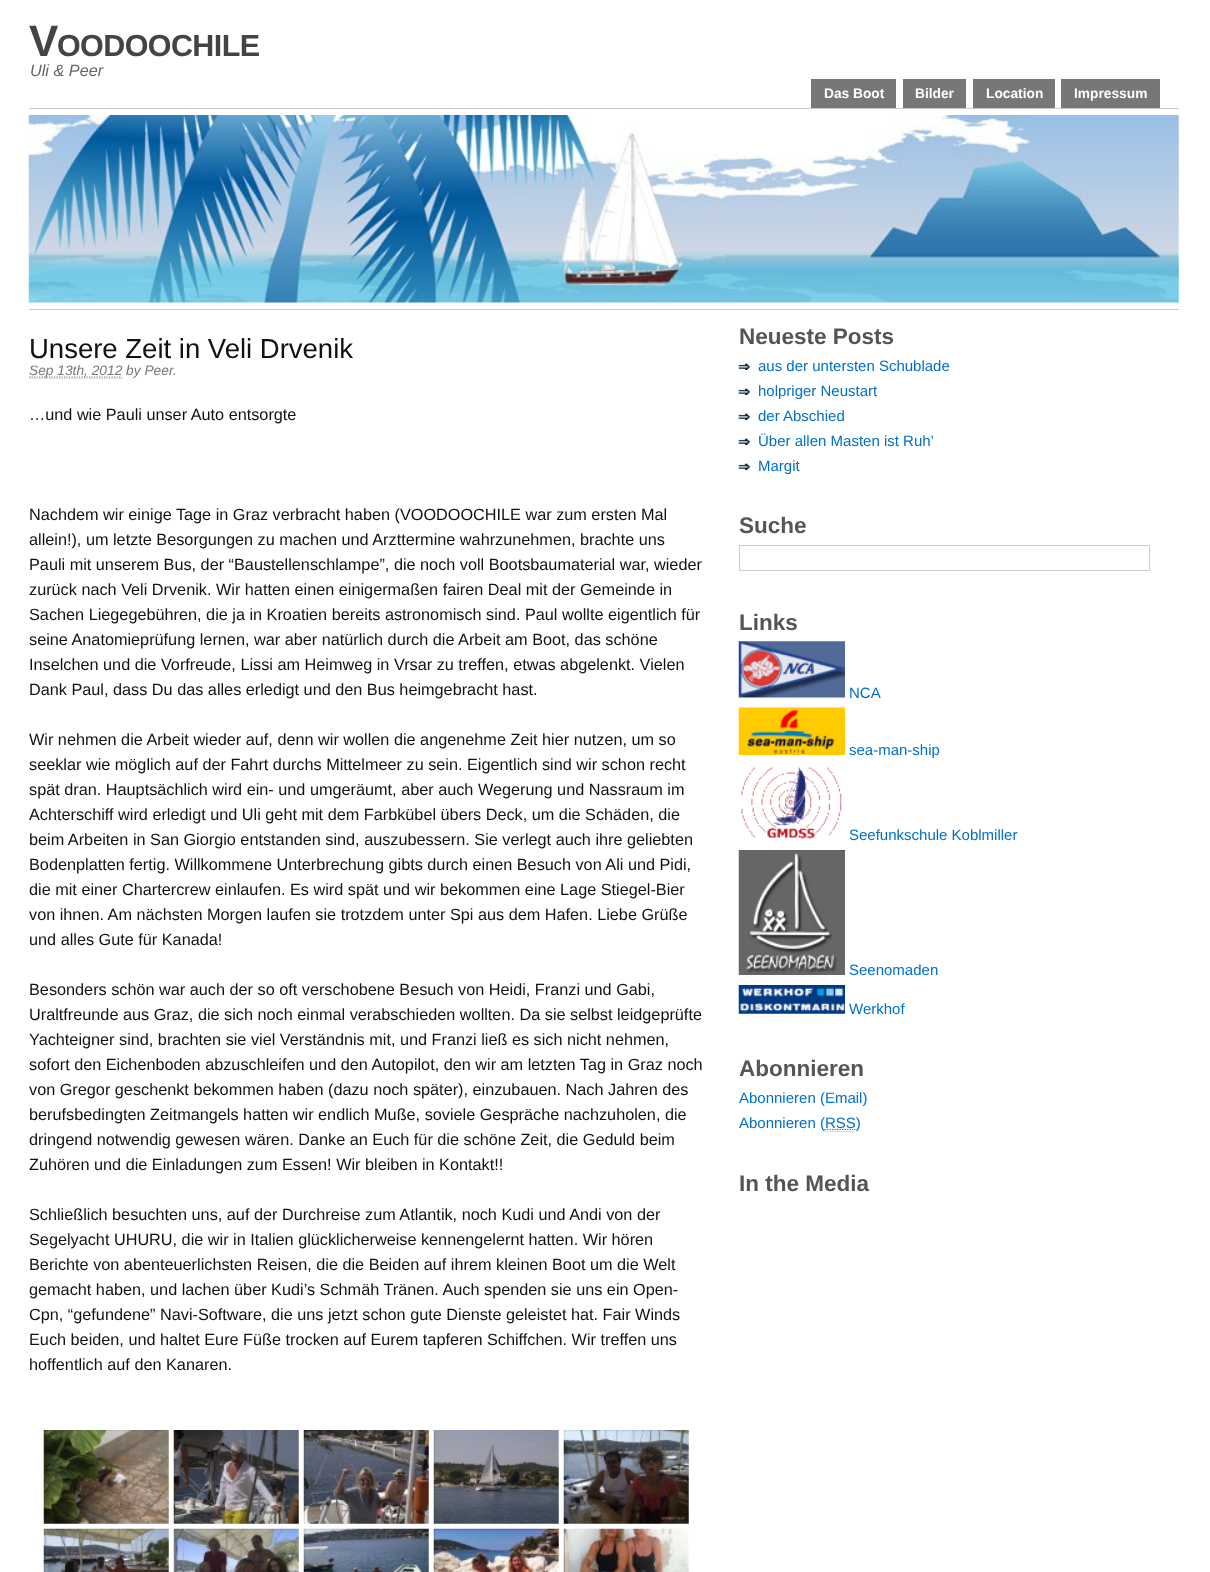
<!DOCTYPE html>
<meta charset="utf-8">
<style>body { margin: 0 } canvas { display: block }</style>
<canvas id="canvas" width="1210" height="1572"></canvas>
<script type="module">
  const canvas = document.getElementById("canvas");
  const ctx = canvas.getContext("2d");
  ctx.miterLimit = 4;
  ctx.fontKerning = "normal";
  async function loadImage(src) {
    const img = new Image();
    img.src = src;
    await img.decode();
    return img;
  }

  ctx.fillStyle = "#ffffff";
  ctx.fillRect(0, 0, 1210, 1572);
  ctx.letterSpacing = "-0.6px";
  ctx.font = "bold 44px Liberation Sans";
  ctx.fillStyle = "#444444";
  ctx.fillText("V", 29, 56);
  ctx.font = "bold 30.5px Liberation Sans";
  ctx.fillText("OODOOCHILE", 57, 56);
  ctx.letterSpacing = "0px";
  ctx.font = "italic 16.25px Liberation Sans";
  ctx.fillStyle = "#666666";
  ctx.fillText("Uli & Peer", 30, 76);
  ctx.fillStyle = "#777777";
  ctx.fillRect(811, 79, 85, 29);
  ctx.font = "bold 13.75px Liberation Sans";
  ctx.fillStyle = "#ffffff";
  ctx.fillText("Das Boot", 824, 98);
  ctx.fillStyle = "#777777";
  ctx.fillRect(903, 79, 63, 29);
  ctx.fillStyle = "#ffffff";
  ctx.fillText("Bilder", 915, 98);
  ctx.fillStyle = "#777777";
  ctx.fillRect(973, 79, 82, 29);
  ctx.fillStyle = "#ffffff";
  ctx.fillText("Location", 986, 98);
  ctx.fillStyle = "#777777";
  ctx.fillRect(1061, 79, 99, 29);
  ctx.fillStyle = "#ffffff";
  ctx.fillText("Impressum", 1074, 98);
  ctx.fillStyle = "#cccccc";
  ctx.fillRect(29, 108, 1150, 1);
  ctx.fillRect(29, 309, 1150, 1);
  ctx.drawImage(await loadImage("img1.png"), 28, 115, 1151, 188);
  ctx.font = "27.5px Liberation Sans";
  ctx.fillStyle = "#111111";
  ctx.fillText("Unsere Zeit in Veli Drvenik", 29, 358);
  ctx.beginPath();
  ctx.moveTo(29, 377);
  ctx.lineTo(122, 377);
  ctx.strokeStyle = "#777777";
  ctx.lineWidth = 1.2;
  ctx.setLineDash([1.25, 1.25]);
  ctx.stroke();
  ctx.font = "italic 13.75px Liberation Sans";
  ctx.fillStyle = "#777777";
  ctx.fillText("Sep 13th, 2012 by Peer", 29, 375);
  ctx.fillStyle = "#dddddd";
  ctx.fillRect(29, 378, 94, 1);
  ctx.fillStyle = "#777777";
  ctx.fillText(".", 173, 375);
  ctx.font = "16.25px Liberation Sans";
  ctx.fillStyle = "#111111";
  ctx.fillText("…und wie Pauli unser Auto entsorgte", 29, 420);
  ctx.fillText("Nachdem wir einige Tage in Graz verbracht haben (VOODOOCHILE war zum ersten Mal", 29, 520);
  ctx.fillText("allein!), um letzte Besorgungen zu machen und Arzttermine wahrzunehmen, brachte uns", 29, 545);
  ctx.fillText("Pauli mit unserem Bus, der “Baustellenschlampe”, die noch voll Bootsbaumaterial war, wieder", 29, 570);
  ctx.fillText("zurück nach Veli Drvenik. Wir hatten einen einigermaßen fairen Deal mit der Gemeinde in", 29, 595);
  ctx.fillText("Sachen Liegegebühren, die ja in Kroatien bereits astronomisch sind. Paul wollte eigentlich für", 29, 620);
  ctx.fillText("seine Anatomieprüfung lernen, war aber natürlich durch die Arbeit am Boot, das schöne", 29, 645);
  ctx.fillText("Inselchen und die Vorfreude, Lissi am Heimweg in Vrsar zu treffen, etwas abgelenkt. Vielen", 29, 670);
  ctx.fillText("Dank Paul, dass Du das alles erledigt und den Bus heimgebracht hast.", 29, 695);
  ctx.fillText("Wir nehmen die Arbeit wieder auf, denn wir wollen die angenehme Zeit hier nutzen, um so", 29, 745);
  ctx.fillText("seeklar wie möglich auf der Fahrt durchs Mittelmeer zu sein. Eigentlich sind wir schon recht", 29, 770);
  ctx.fillText("spät dran. Hauptsächlich wird ein- und umgeräumt, aber auch Wegerung und Nassraum im", 29, 795);
  ctx.fillText("Achterschiff wird erledigt und Uli geht mit dem Farbkübel übers Deck, um die Schäden, die", 29, 820);
  ctx.fillText("beim Arbeiten in San Giorgio entstanden sind, auszubessern. Sie verlegt auch ihre geliebten", 29, 845);
  ctx.fillText("Bodenplatten fertig. Willkommene Unterbrechung gibts durch einen Besuch von Ali und Pidi,", 29, 870);
  ctx.fillText("die mit einer Chartercrew einlaufen. Es wird spät und wir bekommen eine Lage Stiegel-Bier", 29, 895);
  ctx.fillText("von ihnen. Am nächsten Morgen laufen sie trotzdem unter Spi aus dem Hafen. Liebe Grüße", 29, 920);
  ctx.fillText("und alles Gute für Kanada!", 29, 945);
  ctx.fillText("Besonders schön war auch der so oft verschobene Besuch von Heidi, Franzi und Gabi,", 29, 995);
  ctx.fillText("Uraltfreunde aus Graz, die sich noch einmal verabschieden wollten. Da sie selbst leidgeprüfte", 29, 1020);
  ctx.fillText("Yachteigner sind, brachten sie viel Verständnis mit, und Franzi ließ es sich nicht nehmen,", 29, 1045);
  ctx.fillText("sofort den Eichenboden abzuschleifen und den Autopilot, den wir am letzten Tag in Graz noch", 29, 1070);
  ctx.fillText("von Gregor geschenkt bekommen haben (dazu noch später), einzubauen. Nach Jahren des", 29, 1095);
  ctx.fillText("berufsbedingten Zeitmangels hatten wir endlich Muße, soviele Gespräche nachzuholen, die", 29, 1120);
  ctx.fillText("dringend notwendig gewesen wären. Danke an Euch für die schöne Zeit, die Geduld beim", 29, 1145);
  ctx.fillText("Zuhören und die Einladungen zum Essen! Wir bleiben in Kontakt!!", 29, 1170);
  ctx.fillText("Schließlich besuchten uns, auf der Durchreise zum Atlantik, noch Kudi und Andi von der", 29, 1220);
  ctx.fillText("Segelyacht UHURU, die wir in Italien glücklicherweise kennengelernt hatten. Wir hören", 29, 1245);
  ctx.fillText("Berichte von abenteuerlichsten Reisen, die die Beiden auf ihrem kleinen Boot um die Welt", 29, 1270);
  ctx.fillText("gemacht haben, und lachen über Kudi’s Schmäh Tränen. Auch spenden sie uns ein Open-", 29, 1295);
  ctx.fillText("Cpn, “gefundene” Navi-Software, die uns jetzt schon gute Dienste geleistet hat. Fair Winds", 29, 1320);
  ctx.fillText("Euch beiden, und haltet Eure Füße trocken auf Eurem tapferen Schiffchen. Wir treffen uns", 29, 1345);
  ctx.fillText("hoffentlich auf den Kanaren.", 29, 1370);
  ctx.drawImage(await loadImage("img2.png"), 43, 1430, 126, 94);
  ctx.drawImage(await loadImage("img3.png"), 173, 1430, 126, 94);
  ctx.drawImage(await loadImage("img4.png"), 303, 1430, 126, 94);
  ctx.drawImage(await loadImage("img5.png"), 433, 1430, 126, 94);
  ctx.drawImage(await loadImage("img6.png"), 563, 1430, 126, 94);
  ctx.drawImage(await loadImage("img7.png"), 43, 1528, 126, 44);
  ctx.drawImage(await loadImage("img8.png"), 173, 1528, 126, 44);
  ctx.drawImage(await loadImage("img9.png"), 303, 1528, 126, 44);
  ctx.drawImage(await loadImage("img10.png"), 433, 1528, 126, 44);
  ctx.drawImage(await loadImage("img11.png"), 563, 1528, 126, 44);
  ctx.font = "bold 22.5px Liberation Sans";
  ctx.fillStyle = "#555555";
  ctx.fillText("Neueste Posts", 739, 344);
  ctx.drawImage(await loadImage("img12.png"), 738, 363, 12, 7);
  ctx.font = "15px Liberation Sans";
  ctx.fillStyle = "#0070c5";
  ctx.fillText("aus der untersten Schublade", 758, 371);
  ctx.drawImage(await loadImage("img12.png"), 738, 388, 12, 7);
  ctx.fillText("holpriger Neustart", 758, 396);
  ctx.drawImage(await loadImage("img12.png"), 738, 413, 12, 7);
  ctx.fillText("der Abschied", 758, 421);
  ctx.drawImage(await loadImage("img12.png"), 738, 438, 12, 7);
  ctx.fillText("Über allen Masten ist Ruh’", 758, 446);
  ctx.drawImage(await loadImage("img12.png"), 738, 463, 12, 7);
  ctx.fillText("Margit", 758, 471);
  ctx.font = "bold 22.5px Liberation Sans";
  ctx.fillStyle = "#555555";
  ctx.fillText("Suche", 739, 533);
  ctx.strokeStyle = "#cccccc";
  ctx.lineWidth = 1;
  ctx.setLineDash([]);
  ctx.strokeRect(739.5, 545.5, 410, 25);
  ctx.fillText("Links", 739, 630);
  ctx.drawImage(await loadImage("img13.png"), 738, 641, 107, 57);
  ctx.font = "15px Liberation Sans";
  ctx.fillStyle = "#0070c5";
  ctx.fillText("NCA", 849, 698);
  ctx.drawImage(await loadImage("img14.png"), 738, 707, 107, 48);
  ctx.fillText("sea-man-ship", 849, 755);
  ctx.drawImage(await loadImage("img15.png"), 741, 767, 101, 72);
  ctx.fillText("Seefunkschule Koblmiller", 849, 840);
  ctx.drawImage(await loadImage("img16.png"), 738, 850, 107, 125);
  ctx.fillText("Seenomaden", 849, 975);
  ctx.drawImage(await loadImage("img17.png"), 738, 985, 107, 29);
  ctx.fillText("Werkhof", 849, 1014);
  ctx.font = "bold 22.5px Liberation Sans";
  ctx.fillStyle = "#555555";
  ctx.fillText("Abonnieren", 739, 1076);
  ctx.font = "15px Liberation Sans";
  ctx.fillStyle = "#0070c5";
  ctx.fillText("Abonnieren (Email)", 739, 1103);
  ctx.fillText("Abonnieren (", 739, 1128);
  ctx.fillStyle = "#dddddd";
  ctx.fillRect(825, 1131, 30, 1);
  ctx.beginPath();
  ctx.moveTo(824.5, 1129.5);
  ctx.lineTo(855.5, 1129.5);
  ctx.strokeStyle = "#0070c5";
  ctx.lineWidth = 1.2;
  ctx.setLineDash([1.25, 1.25]);
  ctx.stroke();
  ctx.fillStyle = "#0070c5";
  ctx.fillText("RSS)", 825, 1128);
  ctx.font = "bold 22.5px Liberation Sans";
  ctx.fillStyle = "#555555";
  ctx.fillText("In the Media", 739, 1191);
</script>
